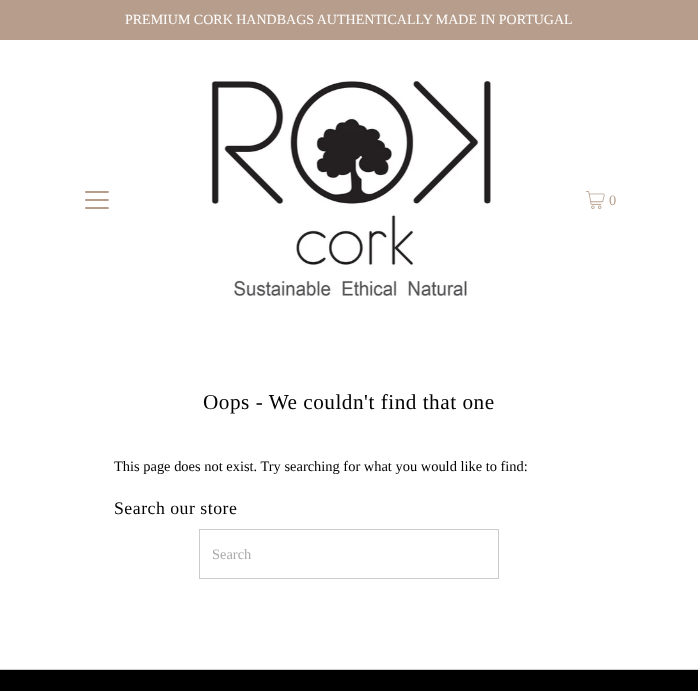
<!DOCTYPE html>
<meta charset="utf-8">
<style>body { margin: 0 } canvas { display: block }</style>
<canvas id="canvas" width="698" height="691"></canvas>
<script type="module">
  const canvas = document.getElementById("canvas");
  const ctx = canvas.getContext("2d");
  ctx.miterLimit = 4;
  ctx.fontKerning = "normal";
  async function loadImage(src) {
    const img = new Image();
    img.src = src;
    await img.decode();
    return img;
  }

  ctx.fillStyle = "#ffffff";
  ctx.fillRect(0, 0, 698, 691);
  ctx.fillStyle = "#b79e8c";
  ctx.fillRect(0, 0, 698, 40);
  ctx.font = "14px Liberation Serif";
  ctx.fillStyle = "#ffffff";
  ctx.fillText("PREMIUM CORK HANDBAGS AUTHENTICALLY MADE IN PORTUGAL", 125, 24);
  ctx.drawImage(await loadImage("img1.png"), 85, 191, 24, 18);
  ctx.drawImage(await loadImage("img2.png"), 211, 81, 280, 215);
  ctx.drawImage(await loadImage("img3.png"), 586, 191, 19, 18);
  ctx.font = "14.45px Liberation Serif";
  ctx.fillStyle = "#b79e8c";
  ctx.fillText("0", 609, 205);
  ctx.letterSpacing = "0.5px";
  ctx.font = "21.25px Liberation Serif";
  ctx.fillStyle = "#000000";
  ctx.fillText("Oops - We couldn't find that one", 203, 409);
  ctx.letterSpacing = "0px";
  ctx.font = "14.45px Liberation Serif";
  ctx.fillText("This page does not exist. Try searching for what you would like to find:", 114, 471);
  ctx.letterSpacing = "0.5px";
  ctx.font = "17.75px Liberation Serif";
  ctx.fillText("Search our store", 114, 514);
  ctx.strokeStyle = "#cccccc";
  ctx.strokeRect(199.5, 529.5, 299, 49);
  ctx.letterSpacing = "0px";
  ctx.font = "14.45px Liberation Serif";
  ctx.fillStyle = "#aaaaaa";
  ctx.fillText("Search", 212, 559);
  ctx.fillStyle = "#000000";
  ctx.fillRect(0, 670, 698, 21);
  ctx.fillStyle = "#cccccc";
  ctx.fillRect(0, 669, 698, 1);
</script>
